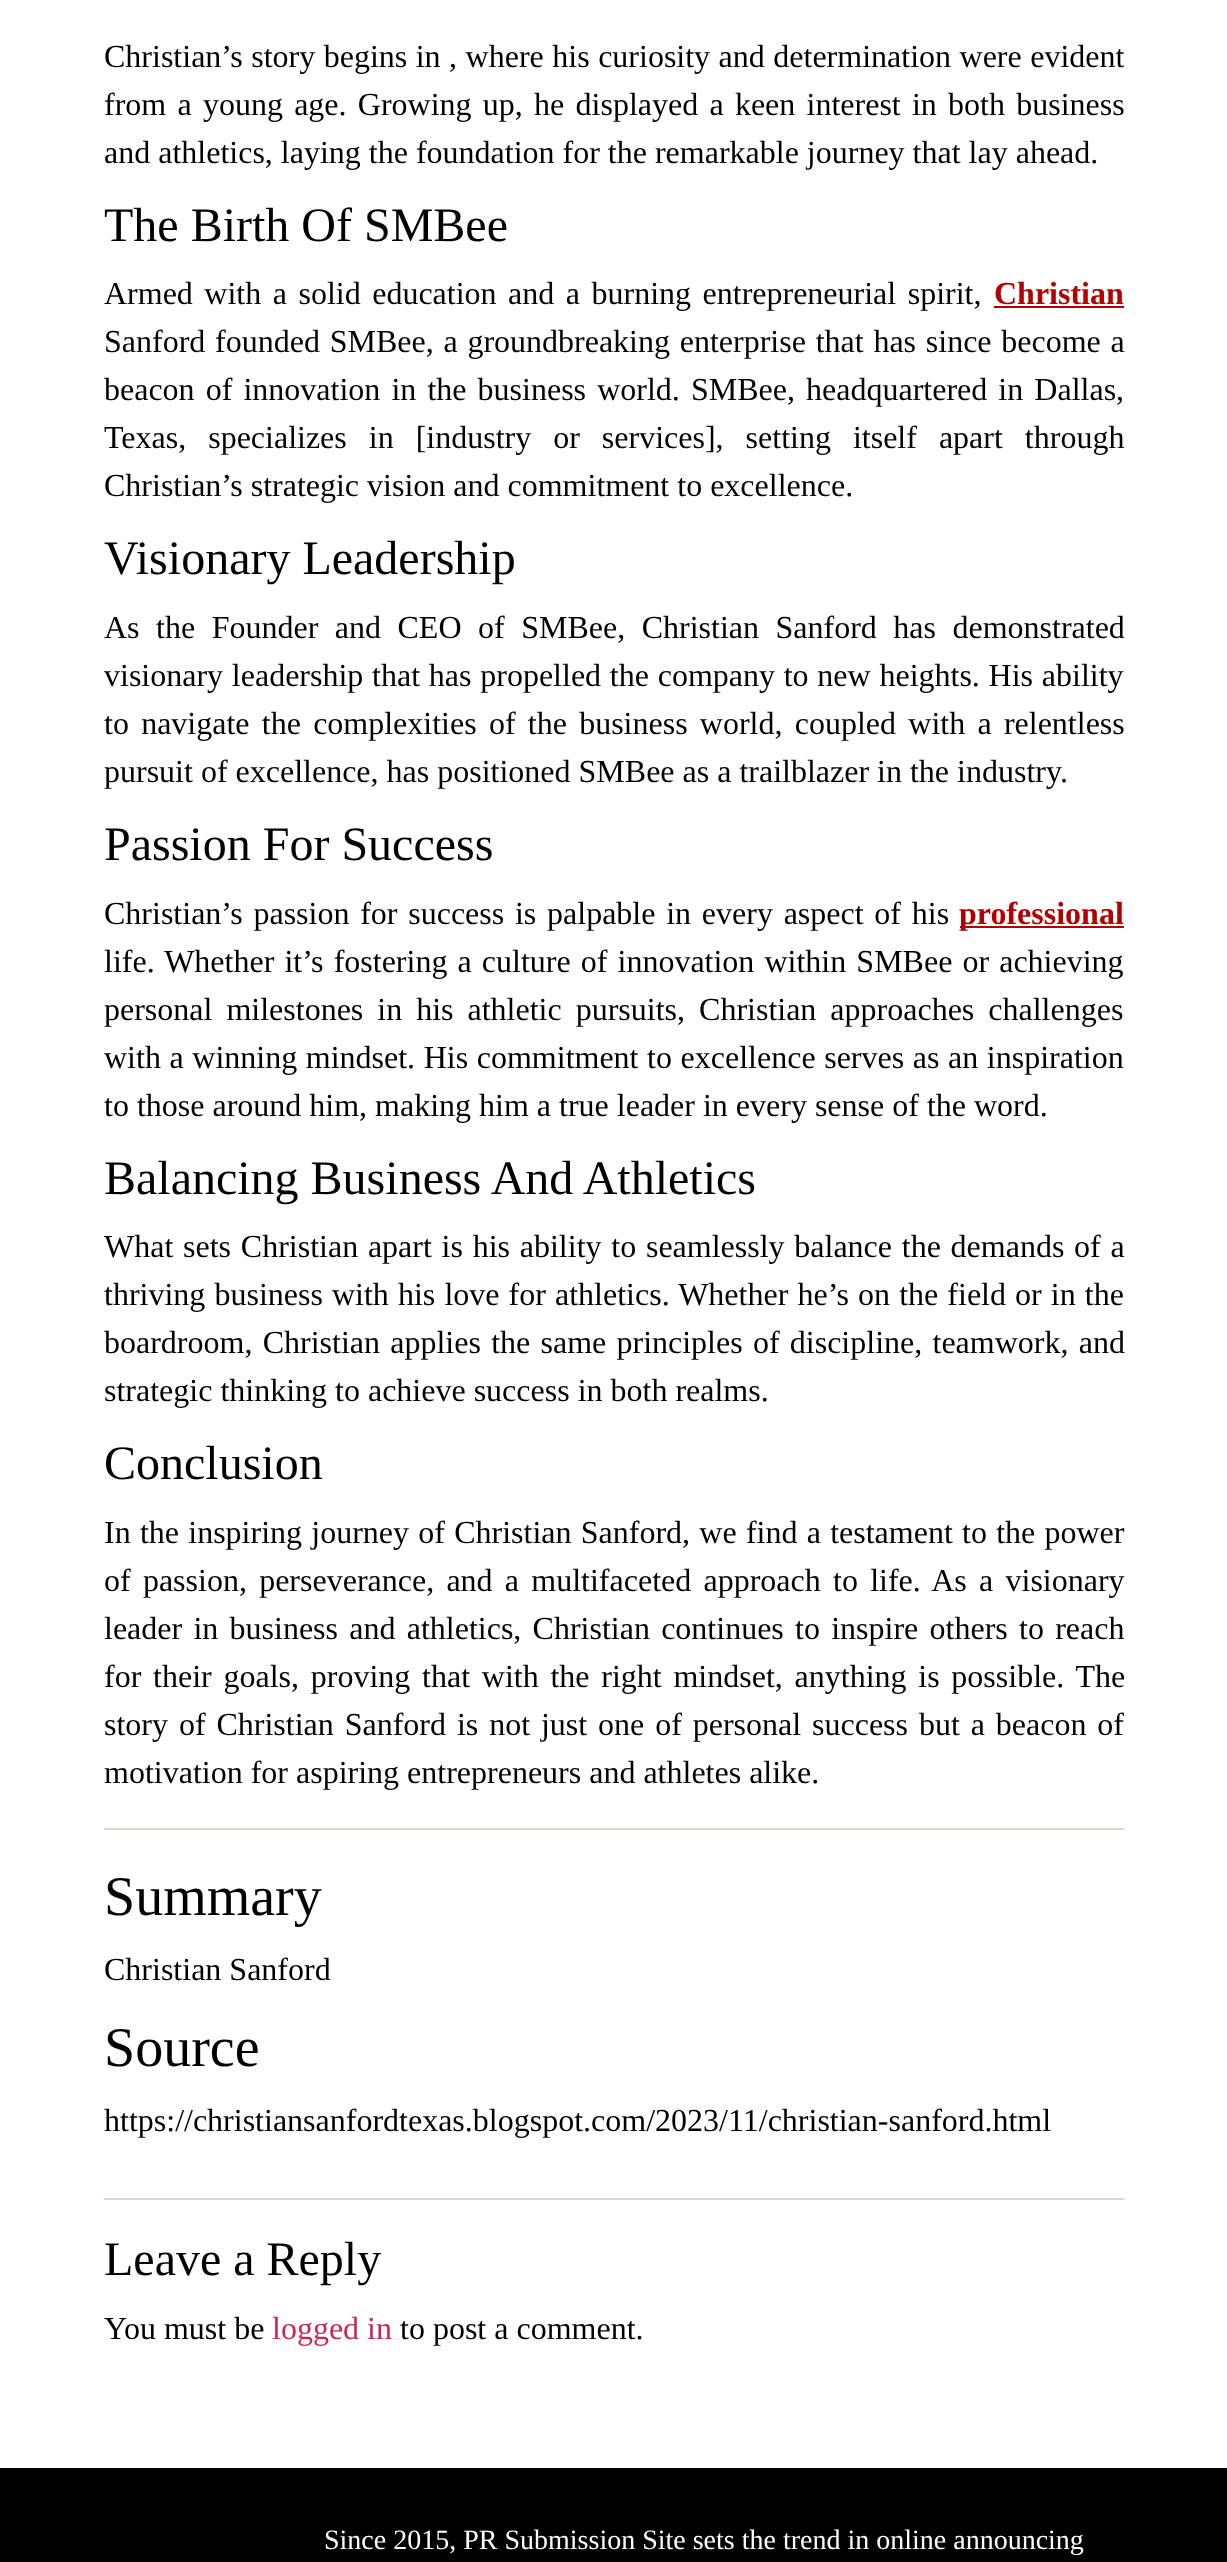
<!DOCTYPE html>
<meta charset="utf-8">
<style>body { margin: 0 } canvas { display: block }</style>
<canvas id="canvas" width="1227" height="2562"></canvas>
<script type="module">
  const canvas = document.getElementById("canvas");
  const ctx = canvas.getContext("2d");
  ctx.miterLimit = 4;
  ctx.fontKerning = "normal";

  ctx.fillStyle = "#ffffff";
  ctx.fillRect(0, 0, 1227, 2562);
  ctx.wordSpacing = "0.5px";
  ctx.font = "32px Liberation Serif";
  ctx.fillStyle = "#000000";
  ctx.fillText("Christian’s story begins in , where his curiosity and determination were evident", 104, 67);
  ctx.wordSpacing = "3.25px";
  ctx.fillText("from a young age. Growing up, he displayed a keen interest in both business", 104, 115);
  ctx.wordSpacing = "0px";
  ctx.fillText("and athletics, laying the foundation for the remarkable journey that lay ahead.", 104, 163);
  ctx.font = "48px Liberation Serif";
  ctx.fillText("The Birth Of SMBee", 104, 241);
  ctx.wordSpacing = "3.5px";
  ctx.font = "32px Liberation Serif";
  ctx.fillText("Armed with a solid education and a burning entrepreneurial spirit,", 104, 304);
  ctx.wordSpacing = "0px";
  ctx.font = "bold 32px Liberation Serif";
  ctx.fillStyle = "#b30101";
  ctx.fillText("Christian", 994, 304);
  ctx.fillRect(994, 306, 130, 2);
  ctx.wordSpacing = "1.75px";
  ctx.font = "32px Liberation Serif";
  ctx.fillStyle = "#000000";
  ctx.fillText("Sanford founded SMBee, a groundbreaking enterprise that has since become a", 104, 352);
  ctx.wordSpacing = "3.1px";
  ctx.fillText("beacon of innovation in the business world. SMBee, headquartered in Dallas,", 104, 400);
  ctx.wordSpacing = "14px";
  ctx.fillText("Texas, specializes in [industry or services], setting itself apart through", 104, 448);
  ctx.wordSpacing = "0px";
  ctx.fillText("Christian’s strategic vision and commitment to excellence.", 104, 496);
  ctx.font = "48px Liberation Serif";
  ctx.fillText("Visionary Leadership", 104, 574);
  ctx.wordSpacing = "8.5px";
  ctx.font = "32px Liberation Serif";
  ctx.fillText("As the Founder and CEO of SMBee, Christian Sanford has demonstrated", 104, 638);
  ctx.wordSpacing = "0.75px";
  ctx.fillText("visionary leadership that has propelled the company to new heights. His ability", 104, 686);
  ctx.wordSpacing = "4.25px";
  ctx.fillText("to navigate the complexities of the business world, coupled with a relentless", 104, 734);
  ctx.wordSpacing = "0px";
  ctx.fillText("pursuit of excellence, has positioned SMBee as a trailblazer in the industry.", 104, 782);
  ctx.font = "48px Liberation Serif";
  ctx.fillText("Passion For Success", 104, 860);
  ctx.wordSpacing = "2.75px";
  ctx.font = "32px Liberation Serif";
  ctx.fillText("Christian’s passion for success is palpable in every aspect of his", 104, 924);
  ctx.fillStyle = "#b30101";
  ctx.fillRect(960, 926, 164, 2);
  ctx.wordSpacing = "0px";
  ctx.font = "bold 32px Liberation Serif";
  ctx.fillText("professional", 959, 924);
  ctx.wordSpacing = "2.1px";
  ctx.font = "32px Liberation Serif";
  ctx.fillStyle = "#000000";
  ctx.fillText("life. Whether it’s fostering a culture of innovation within SMBee or achieving", 104, 972);
  ctx.wordSpacing = "6px";
  ctx.fillText("personal milestones in his athletic pursuits, Christian approaches challenges", 104, 1020);
  ctx.wordSpacing = "0.6px";
  ctx.fillText("with a winning mindset. His commitment to excellence serves as an inspiration", 104, 1068);
  ctx.wordSpacing = "0px";
  ctx.fillText("to those around him, making him a true leader in every sense of the word.", 104, 1116);
  ctx.font = "48px Liberation Serif";
  ctx.fillText("Balancing Business And Athletics", 104, 1194);
  ctx.wordSpacing = "1.75px";
  ctx.font = "32px Liberation Serif";
  ctx.fillText("What sets Christian apart is his ability to seamlessly balance the demands of a", 104, 1257);
  ctx.wordSpacing = "1.1px";
  ctx.fillText("thriving business with his love for athletics. Whether he’s on the field or in the", 104, 1305);
  ctx.wordSpacing = "2.25px";
  ctx.fillText("boardroom, Christian applies the same principles of discipline, teamwork, and", 104, 1353);
  ctx.wordSpacing = "0px";
  ctx.fillText("strategic thinking to achieve success in both realms.", 104, 1401);
  ctx.font = "48px Liberation Serif";
  ctx.fillText("Conclusion", 104, 1479);
  ctx.wordSpacing = "1.25px";
  ctx.font = "32px Liberation Serif";
  ctx.fillText("In the inspiring journey of Christian Sanford, we find a testament to the power", 104, 1543);
  ctx.wordSpacing = "4.25px";
  ctx.fillText("of passion, perseverance, and a multifaceted approach to life. As a visionary", 104, 1591);
  ctx.wordSpacing = "3.25px";
  ctx.fillText("leader in business and athletics, Christian continues to inspire others to reach", 104, 1639);
  ctx.wordSpacing = "3.75px";
  ctx.fillText("for their goals, proving that with the right mindset, anything is possible. The", 104, 1687);
  ctx.wordSpacing = "2.9px";
  ctx.fillText("story of Christian Sanford is not just one of personal success but a beacon of", 104, 1735);
  ctx.wordSpacing = "0px";
  ctx.fillText("motivation for aspiring entrepreneurs and athletes alike.", 104, 1783);
  ctx.fillStyle = "#dcd7ca";
  ctx.fillRect(104, 1828, 1020, 2);
  ctx.font = "56px Liberation Serif";
  ctx.fillStyle = "#000000";
  ctx.fillText("Summary", 104, 1915);
  ctx.font = "32px Liberation Serif";
  ctx.fillText("Christian Sanford", 104, 1980);
  ctx.font = "56px Liberation Serif";
  ctx.fillText("Source", 104, 2066);
  ctx.font = "32px Liberation Serif";
  ctx.fillText("https://christiansanfordtexas.blogspot.com/2023/11/christian-sanford.html", 104, 2131);
  ctx.fillStyle = "#dcd7ca";
  ctx.fillRect(104, 2198, 1020, 2);
  ctx.font = "48px Liberation Serif";
  ctx.fillStyle = "#000000";
  ctx.fillText("Leave a Reply", 104, 2275);
  ctx.font = "32px Liberation Serif";
  ctx.fillText("You must be", 104, 2339);
  ctx.fillStyle = "#cd2653";
  ctx.fillText("logged in", 272, 2339);
  ctx.fillStyle = "#000000";
  ctx.fillText("to post a comment.", 400, 2339);
  ctx.fillRect(0, 2468, 1227, 94);
  ctx.font = "28px Liberation Serif";
  ctx.fillStyle = "#ffffff";
  ctx.fillText("Since 2015, PR Submission Site sets the trend in online announcing", 324, 2549);
</script>
